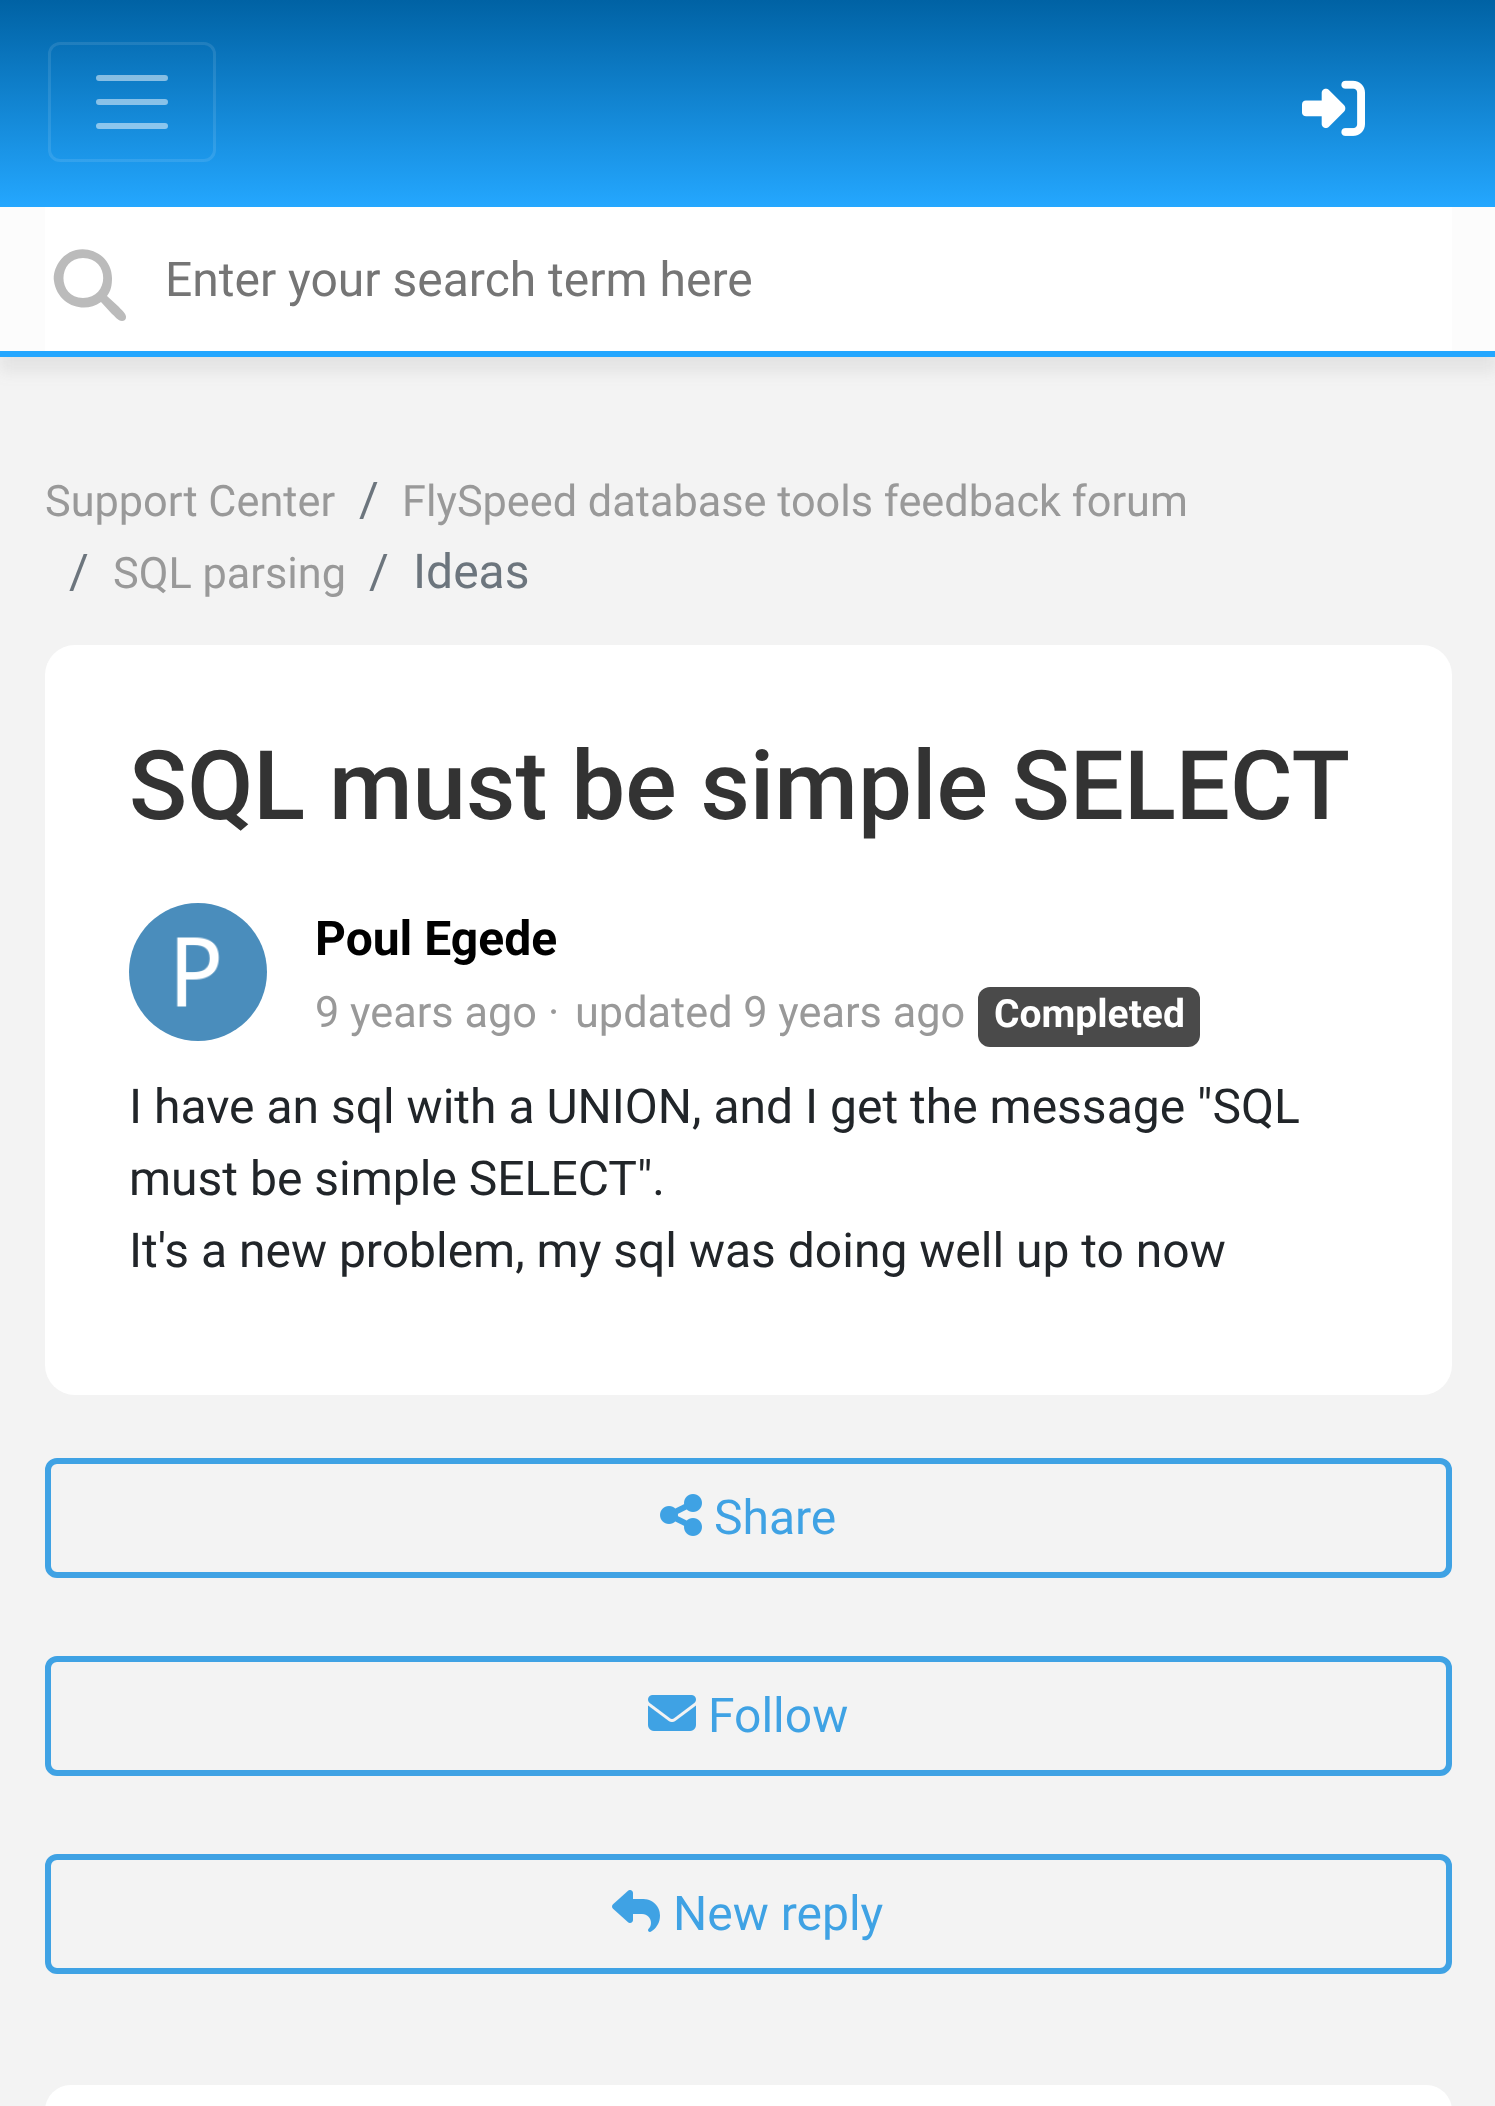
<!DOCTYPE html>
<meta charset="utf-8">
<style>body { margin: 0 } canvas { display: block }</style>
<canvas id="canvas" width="1495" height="2106"></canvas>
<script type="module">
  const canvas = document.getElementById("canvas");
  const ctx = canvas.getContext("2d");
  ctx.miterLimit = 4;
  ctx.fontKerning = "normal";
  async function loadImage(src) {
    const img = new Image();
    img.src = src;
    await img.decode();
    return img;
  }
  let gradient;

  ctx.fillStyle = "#f3f3f3";
  ctx.fillRect(0, 0, 1495, 2106);
  gradient = ctx.createLinearGradient(749, 0, 749, 207);
  gradient.addColorStop(0, "#0062a4");
  gradient.addColorStop(1, "#24a7ff");
  ctx.fillStyle = gradient;
  ctx.fillRect(0, 0, 1495, 207);
  ctx.beginPath();
  ctx.roundRect(49.5, 43.5, 165, 117, 10.5);
  ctx.strokeStyle = "rgba(255, 255, 255, 0.1)";
  ctx.lineWidth = 3;
  ctx.stroke();
  ctx.beginPath();
  ctx.moveTo(99, 78);
  ctx.lineTo(165, 78);
  ctx.moveTo(99, 102);
  ctx.lineTo(165, 102);
  ctx.moveTo(99, 126);
  ctx.lineTo(165, 126);
  ctx.strokeStyle = "rgba(255, 255, 255, 0.5)";
  ctx.lineWidth = 6;
  ctx.lineCap = "round";
  ctx.stroke();
  ctx.drawImage(await loadImage("img1.png"), 1302, 80, 63, 56);
  ctx.fillStyle = "rgba(100, 100, 100, 0.1)";
  ctx.filter = "blur(7.5px)";
  ctx.beginPath();
  ctx.rect(0, 222, 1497, 150);
  ctx.fill();
  ctx.filter = "none";
  ctx.fillStyle = "#fcfcfc";
  ctx.fillRect(0, 207, 1495, 144);
  ctx.fillStyle = "#24a7ff";
  ctx.fillRect(0, 351, 1495, 6);
  ctx.fillStyle = "#ffffff";
  ctx.fillRect(45, 207, 1407, 144);
  ctx.fillStyle = "#bbbbbb";
  ctx.beginPath();
  ctx.moveTo(112, 278);
  ctx.bezierCurveTo(112, 285, 111, 291, 107, 296);
  ctx.lineTo(119, 307);
  ctx.bezierCurveTo(121, 310, 129, 315, 125, 320);
  ctx.bezierCurveTo(120, 324, 115, 316, 112, 314);
  ctx.lineTo(101, 302);
  ctx.bezierCurveTo(90, 310, 75, 309, 65, 301);
  ctx.bezierCurveTo(59, 296, 55, 289, 54, 281);
  ctx.bezierCurveTo(53, 275, 55, 268, 59, 262);
  ctx.bezierCurveTo(75, 238, 112, 250, 112, 278);
  ctx.closePath();
  ctx.moveTo(83, 298);
  ctx.bezierCurveTo(110, 298, 110, 258, 83, 258);
  ctx.bezierCurveTo(57, 258, 57, 298, 83, 298);
  ctx.closePath();
  ctx.fill();
  ctx.font = "48px Roboto";
  ctx.fillStyle = "#757575";
  ctx.fillText("Enter your search term here", 165, 296);
  ctx.font = "43.25px Roboto";
  ctx.fillStyle = "#999999";
  ctx.fillText("Support Center", 45, 516);
  ctx.font = "48px Roboto";
  ctx.fillStyle = "#6c757d";
  ctx.fillText("/", 359, 516);
  ctx.font = "43.25px Roboto";
  ctx.fillStyle = "#999999";
  ctx.fillText("FlySpeed database tools feedback forum", 402, 516);
  ctx.font = "48px Roboto";
  ctx.fillStyle = "#6c757d";
  ctx.fillText("/", 69, 588);
  ctx.font = "43.25px Roboto";
  ctx.fillStyle = "#999999";
  ctx.fillText("SQL parsing", 113, 588);
  ctx.font = "48px Roboto";
  ctx.fillStyle = "#6c757d";
  ctx.fillText("/", 369, 588);
  ctx.fillText("Ideas", 413, 588);
  ctx.fillStyle = "#ffffff";
  ctx.beginPath();
  ctx.roundRect(45, 645, 1407, 750, 30);
  ctx.fill();
  ctx.font = "500 96px Roboto";
  ctx.fillStyle = "#333333";
  ctx.fillText("SQL must be simple SELECT", 129, 819);
  ctx.fillStyle = "#4a8dbc";
  ctx.beginPath();
  ctx.arc(198, 972, 69, 0, Math.PI * 2);
  ctx.fill();
  ctx.drawImage(await loadImage("img2.png"), 176, 937, 44, 70);
  ctx.font = "bold 48px Roboto";
  ctx.fillStyle = "#000000";
  ctx.fillText("Poul Egede", 315, 955);
  ctx.font = "43.25px Roboto";
  ctx.fillStyle = "#999999";
  ctx.fillText("9 years ago", 315, 1027);
  ctx.fillText("·", 548, 1027);
  ctx.fillText("updated 9 years ago", 575, 1027);
  ctx.fillStyle = "#4a4a4a";
  ctx.beginPath();
  ctx.roundRect(978, 987, 222, 60, 12);
  ctx.fill();
  ctx.font = "bold 39px Roboto";
  ctx.fillStyle = "#ffffff";
  ctx.fillText("Completed", 994, 1027);
  ctx.font = "48px Roboto";
  ctx.fillStyle = "#212529";
  ctx.fillText("I have an sql with a UNION, and I get the message \"SQL", 129, 1123);
  ctx.fillText("must be simple SELECT\".", 129, 1195);
  ctx.fillText("It's a new problem, my sql was doing well up to now", 129, 1267);
  ctx.beginPath();
  ctx.roundRect(48, 1461, 1401, 114, 9);
  ctx.strokeStyle = "#3fa2e4";
  ctx.stroke();
  ctx.drawImage(await loadImage("img3.png"), 660, 1494, 42, 42);
  ctx.fillStyle = "#3fa2e4";
  ctx.fillText("Share", 714, 1534);
  ctx.beginPath();
  ctx.roundRect(48, 1659, 1401, 114, 9);
  ctx.stroke();
  ctx.drawImage(await loadImage("img4.png"), 648, 1695, 48, 36);
  ctx.fillText("Follow", 708, 1732);
  ctx.beginPath();
  ctx.roundRect(48, 1857, 1401, 114, 9);
  ctx.stroke();
  ctx.drawImage(await loadImage("img5.png"), 612, 1890, 48, 42);
  ctx.fillText("New reply", 673, 1930);
  ctx.fillStyle = "#ffffff";
  ctx.beginPath();
  ctx.roundRect(45, 2085, 1407, 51, 30);
  ctx.fill();
</script>
